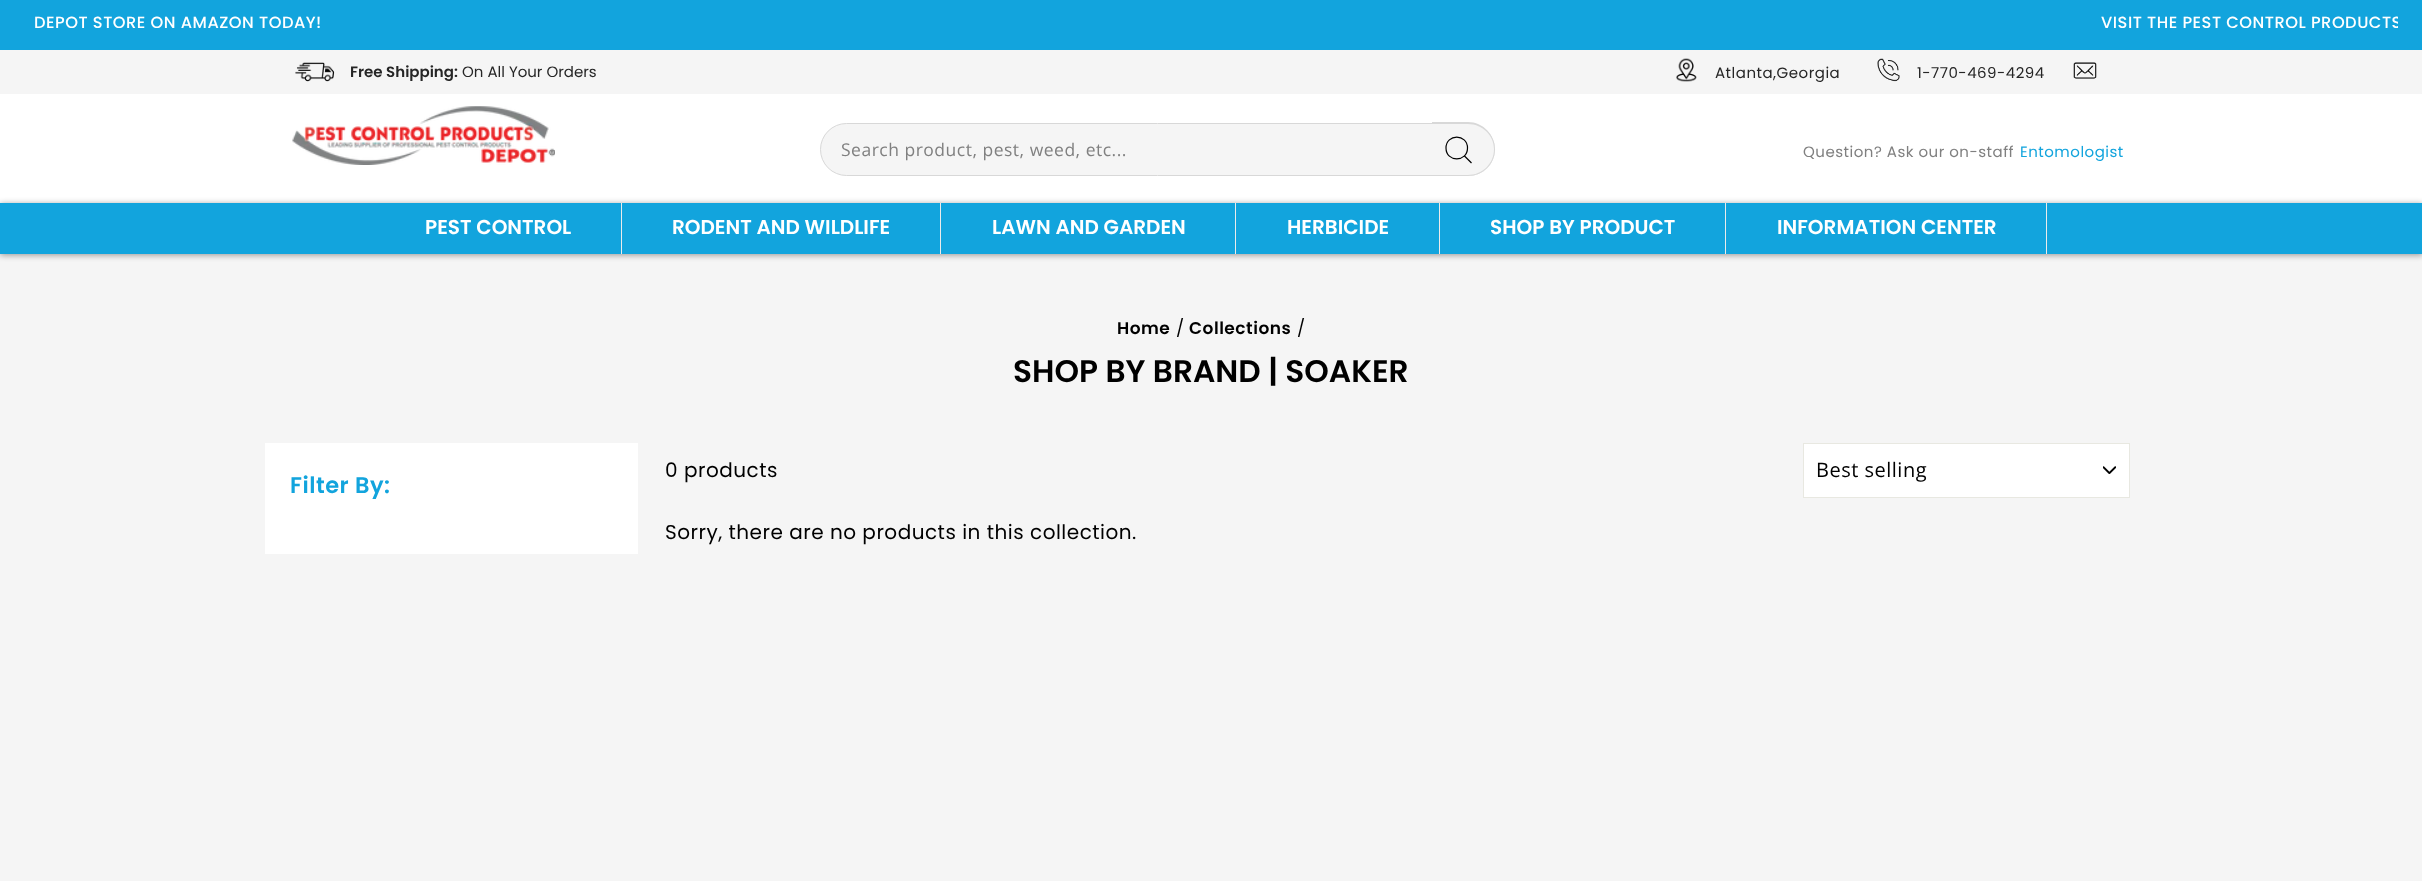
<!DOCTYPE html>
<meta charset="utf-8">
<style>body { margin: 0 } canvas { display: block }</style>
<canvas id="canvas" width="2422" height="881"></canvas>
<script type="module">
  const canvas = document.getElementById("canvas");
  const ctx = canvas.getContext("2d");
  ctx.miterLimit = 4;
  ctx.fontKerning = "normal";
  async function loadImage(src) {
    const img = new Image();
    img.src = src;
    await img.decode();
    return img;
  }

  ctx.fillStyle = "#f5f5f5";
  ctx.fillRect(0, 0, 2422, 881);
  ctx.fillStyle = "#12a4dd";
  ctx.fillRect(0, 0, 2422, 50);
  ctx.letterSpacing = "0.5px";
  ctx.font = "500 16.25px Poppins";
  ctx.fillStyle = "#ffffff";
  ctx.fillText("DEPOT STORE ON AMAZON TODAY!", 34, 28);
  ctx.save();
  ctx.beginPath();
  ctx.rect(1211, 4, 1187, 37);
  ctx.clip();
  ctx.fillText("VISIT THE PEST CONTROL PRODUCTS", 2101, 28);
  ctx.restore();
  ctx.drawImage(await loadImage("img1.png"), 295, 62, 40, 20);
  ctx.letterSpacing = "0px";
  ctx.font = "600 15px Poppins";
  ctx.fillStyle = "#262626";
  ctx.fillText("Free Shipping:", 350, 77);
  ctx.font = "15px Poppins";
  ctx.fillText("On All Your Orders", 462, 77);
  ctx.drawImage(await loadImage("img2.png"), 1676, 58, 21, 24);
  ctx.letterSpacing = "0.5px";
  ctx.fillText("Atlanta,Georgia", 1715, 78);
  ctx.drawImage(await loadImage("img3.png"), 1877, 58, 23, 24);
  ctx.fillText("1-770-469-4294", 1917, 78);
  ctx.drawImage(await loadImage("img4.png"), 2073, 62, 24, 17);
  ctx.fillStyle = "rgba(0, 0, 0, 0.2)";
  ctx.filter = "blur(0.5px)";
  ctx.beginPath();
  ctx.rect(0, 94, 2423, 160);
  ctx.fill();
  ctx.filter = "none";
  ctx.fillStyle = "#ffffff";
  ctx.fillRect(0, 94, 2422, 109);
  ctx.drawImage(await loadImage("img5.png"), 292, 106, 263, 59);
  ctx.fillStyle = "#f5f5f5";
  ctx.beginPath();
  ctx.roundRect(820.5, 123.5, 674, 52, 26);
  ctx.fill();
  ctx.strokeStyle = "#d8d8d8";
  ctx.stroke();
  ctx.font = "17.5px Open Sans";
  ctx.fillStyle = "#808080";
  ctx.fillText("Search product, pest, weed, etc...", 841, 156);
  ctx.fillStyle = "#f5f5f5";
  ctx.beginPath();
  ctx.roundRect(1433, 123, 62, 53, [0, 26.5, 26.5, 0]);
  ctx.fill();
  ctx.fillStyle = "#d8d8d8";
  ctx.beginPath();
  ctx.moveTo(1432, 122);
  ctx.lineTo(1468, 122);
  ctx.bezierCurveTo(1483, 122, 1495, 135, 1495, 149);
  ctx.bezierCurveTo(1495, 164, 1483, 176, 1468, 176);
  ctx.lineTo(1432, 176);
  ctx.closePath();
  ctx.moveTo(1432, 124);
  ctx.lineTo(1468, 124);
  ctx.bezierCurveTo(1482, 124, 1494, 135, 1494, 149);
  ctx.bezierCurveTo(1494, 164, 1482, 175, 1468, 175);
  ctx.lineTo(1432, 175);
  ctx.closePath();
  ctx.fill("evenodd");
  ctx.beginPath();
  ctx.moveTo(1467.5, 148);
  ctx.bezierCurveTo(1467.5, 162.5, 1446, 162.5, 1446, 148);
  ctx.bezierCurveTo(1446, 133.5, 1467.5, 133.5, 1467.5, 148);
  ctx.closePath();
  ctx.moveTo(1471.5, 163);
  ctx.lineTo(1464.5, 156);
  ctx.strokeStyle = "#000000";
  ctx.lineWidth = 1.2;
  ctx.stroke();
  ctx.font = "15px Poppins";
  ctx.fillStyle = "#808080";
  ctx.fillText("Question? Ask our on-staff", 1803, 157);
  ctx.fillStyle = "#12a4dd";
  ctx.fillText("Entomologist", 2020, 157);
  ctx.fillStyle = "rgba(0, 0, 0, 0.4)";
  ctx.filter = "blur(3px)";
  ctx.beginPath();
  ctx.rect(0, 204, 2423, 51);
  ctx.fill();
  ctx.filter = "none";
  ctx.fillStyle = "#12a4dd";
  ctx.fillRect(0, 203, 2422, 51);
  ctx.fillStyle = "#ebebeb";
  ctx.fillRect(621, 203, 1, 51);
  ctx.letterSpacing = "0px";
  ctx.font = "600 20px Poppins";
  ctx.fillStyle = "#ffffff";
  ctx.fillText("PEST CONTROL", 425, 234);
  ctx.fillStyle = "#ebebeb";
  ctx.fillRect(940, 203, 1, 51);
  ctx.fillStyle = "#ffffff";
  ctx.fillText("RODENT AND WILDLIFE", 672, 234);
  ctx.fillStyle = "#ebebeb";
  ctx.fillRect(1235, 203, 1, 51);
  ctx.fillStyle = "#ffffff";
  ctx.fillText("LAWN AND GARDEN", 992, 234);
  ctx.fillStyle = "#ebebeb";
  ctx.fillRect(1439, 203, 1, 51);
  ctx.fillStyle = "#ffffff";
  ctx.fillText("HERBICIDE", 1287, 234);
  ctx.fillStyle = "#ebebeb";
  ctx.fillRect(1725, 203, 1, 51);
  ctx.fillStyle = "#ffffff";
  ctx.fillText("SHOP BY PRODUCT", 1490, 234);
  ctx.fillStyle = "#ebebeb";
  ctx.fillRect(2046, 203, 1, 51);
  ctx.fillStyle = "#ffffff";
  ctx.fillText("INFORMATION CENTER", 1777, 234);
  ctx.letterSpacing = "0.5px";
  ctx.font = "600 17px Poppins";
  ctx.fillStyle = "#000000";
  ctx.fillText("Home", 1117, 334);
  ctx.font = "17px Poppins";
  ctx.fillText("/", 1176, 334);
  ctx.font = "600 17px Poppins";
  ctx.fillText("Collections", 1189, 334);
  ctx.font = "17px Poppins";
  ctx.fillText("/", 1297, 334);
  ctx.letterSpacing = "0px";
  ctx.font = "600 31.25px Poppins";
  ctx.fillText("SHOP BY BRAND | SOAKER", 1013, 382);
  ctx.fillStyle = "#ffffff";
  ctx.fillRect(265, 443, 373, 111);
  ctx.letterSpacing = "0.5px";
  ctx.font = "600 22.5px Poppins";
  ctx.fillStyle = "#12a4dd";
  ctx.fillText("Filter By:", 290, 493);
  ctx.font = "20px Poppins";
  ctx.fillStyle = "#000000";
  ctx.fillText("0 products", 665, 477);
  ctx.fillStyle = "#ffffff";
  ctx.fillRect(1804, 444, 325, 53);
  ctx.drawImage(await loadImage("img6.png"), 2103, 466, 13, 8);
  ctx.strokeStyle = "#e8e8e1";
  ctx.lineWidth = 1;
  ctx.strokeRect(1803.5, 443.5, 326, 54);
  ctx.font = "20px Open Sans";
  ctx.fillStyle = "#000000";
  ctx.fillText("Best selling", 1816, 477);
  ctx.font = "20px Poppins";
  ctx.fillText("Sorry, there are no products in this collection.", 665, 539);
</script>
